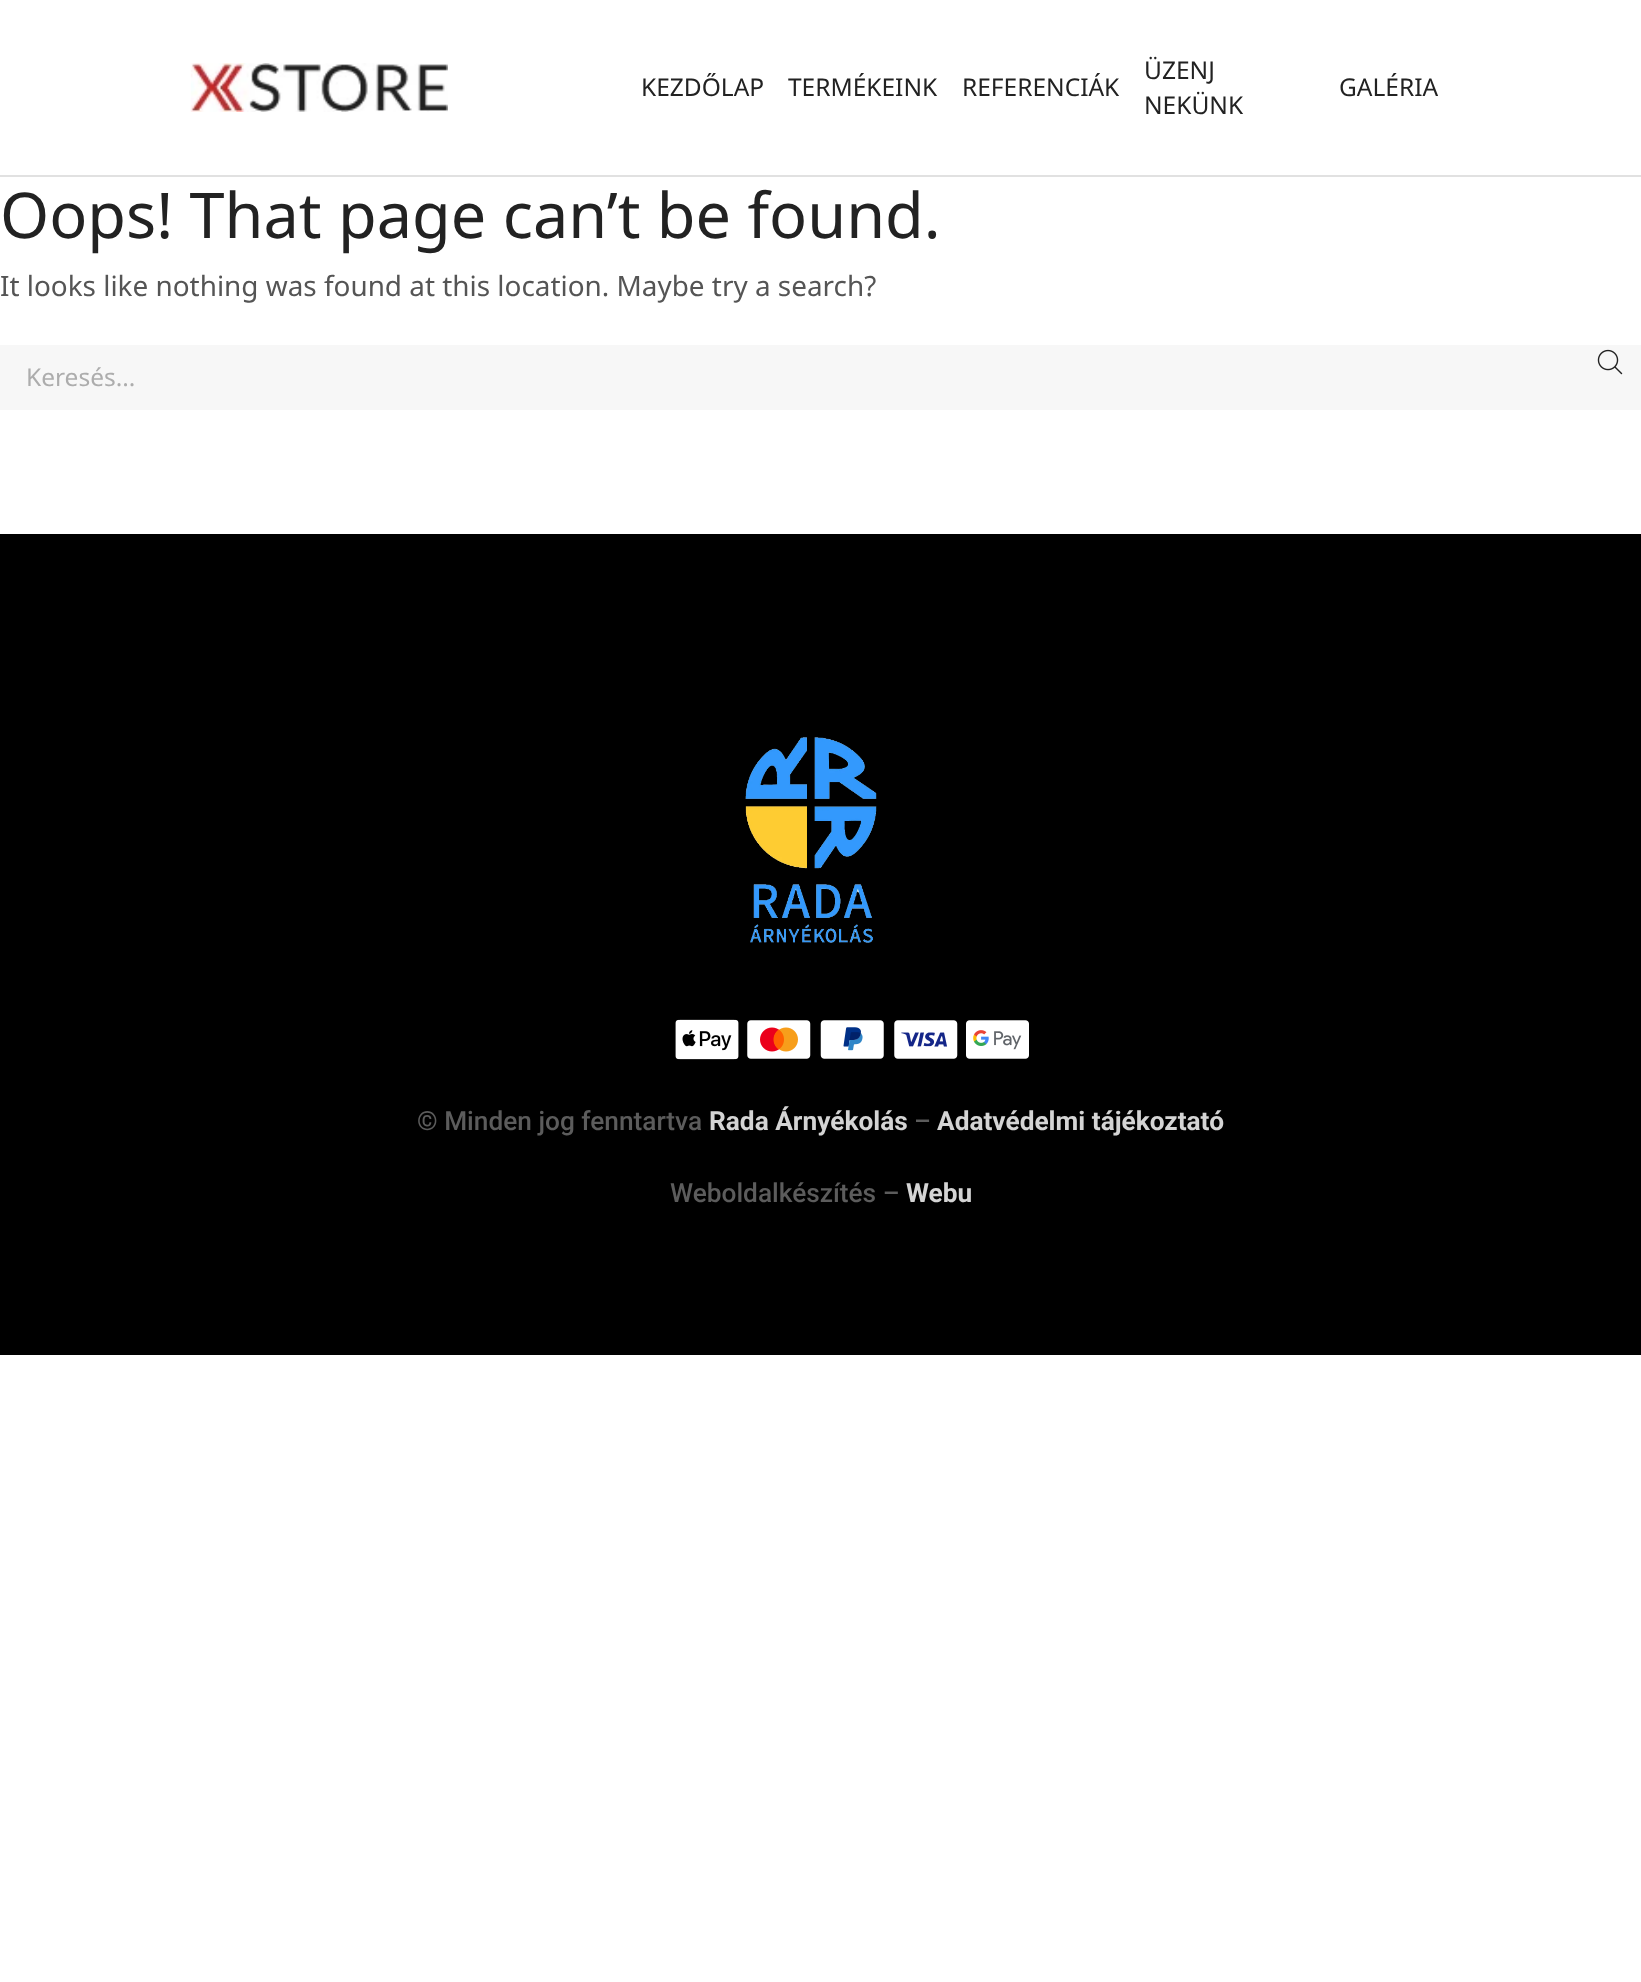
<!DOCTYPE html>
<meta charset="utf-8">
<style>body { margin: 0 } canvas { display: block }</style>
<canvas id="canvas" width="1641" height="1982"></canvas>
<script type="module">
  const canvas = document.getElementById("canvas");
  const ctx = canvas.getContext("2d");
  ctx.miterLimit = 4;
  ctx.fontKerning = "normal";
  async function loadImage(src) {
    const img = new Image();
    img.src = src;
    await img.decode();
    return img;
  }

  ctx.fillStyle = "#ffffff";
  ctx.fillRect(0, 0, 1641, 1982);
  ctx.fillStyle = "#e1e1e1";
  ctx.fillRect(0, 175, 1641, 2);
  ctx.drawImage(await loadImage("img1.png"), 190, 63, 258, 49);
  ctx.font = "24.5px Noto Sans";
  ctx.fillStyle = "#222222";
  ctx.fillText("KEZDŐLAP", 641, 96);
  ctx.fillText("TERMÉKEINK", 788, 96);
  ctx.fillText("REFERENCIÁK", 962, 96);
  ctx.fillText("ÜZENJ", 1144, 79);
  ctx.fillText("NEKÜNK", 1144, 114);
  ctx.fillText("GALÉRIA", 1339, 96);
  ctx.font = "63px Noto Sans";
  ctx.fillText("Oops! That page can’t be found.", 0, 238);
  ctx.font = "27.9px Noto Sans";
  ctx.fillStyle = "#555555";
  ctx.fillText("It looks like nothing was found at this location. Maybe try a search?", 0, 296);
  ctx.fillStyle = "#f7f7f7";
  ctx.fillRect(0, 345, 1641, 65);
  ctx.drawImage(await loadImage("img2.png"), 1597, 349, 26, 26);
  ctx.font = "24.5px Noto Sans";
  ctx.fillStyle = "#adadad";
  ctx.fillText("Keresés...", 26, 386);
  ctx.fillStyle = "#000000";
  ctx.fillRect(0, 534, 1641, 821);
  ctx.drawImage(await loadImage("img3.png"), 745, 737, 132, 206);
  ctx.drawImage(await loadImage("img4.png"), 675, 1019, 64, 41);
  ctx.drawImage(await loadImage("img5.png"), 747, 1020, 64, 39);
  ctx.drawImage(await loadImage("img6.png"), 820, 1020, 64, 39);
  ctx.drawImage(await loadImage("img7.png"), 894, 1020, 64, 39);
  ctx.drawImage(await loadImage("img8.png"), 966, 1020, 63, 39);
  ctx.font = "500 26.25px Roboto";
  ctx.fillStyle = "#5c5c5c";
  ctx.fillText("© Minden jog fenntartva", 417, 1130);
  ctx.font = "bold 26.25px Roboto";
  ctx.fillStyle = "#d4d4d4";
  ctx.fillText("Rada Árnyékolás", 709, 1130);
  ctx.font = "500 26.25px Roboto";
  ctx.fillStyle = "#5c5c5c";
  ctx.fillText("–", 914, 1130);
  ctx.font = "bold 26.25px Roboto";
  ctx.fillStyle = "#d4d4d4";
  ctx.fillText("Adatvédelmi tájékoztató", 937, 1130);
  ctx.font = "500 26.25px Roboto";
  ctx.fillStyle = "#5c5c5c";
  ctx.fillText("Weboldalkészítés –", 670, 1202);
  ctx.font = "bold 26.25px Roboto";
  ctx.fillStyle = "#d4d4d4";
  ctx.fillText("Webu", 906, 1202);
</script>
